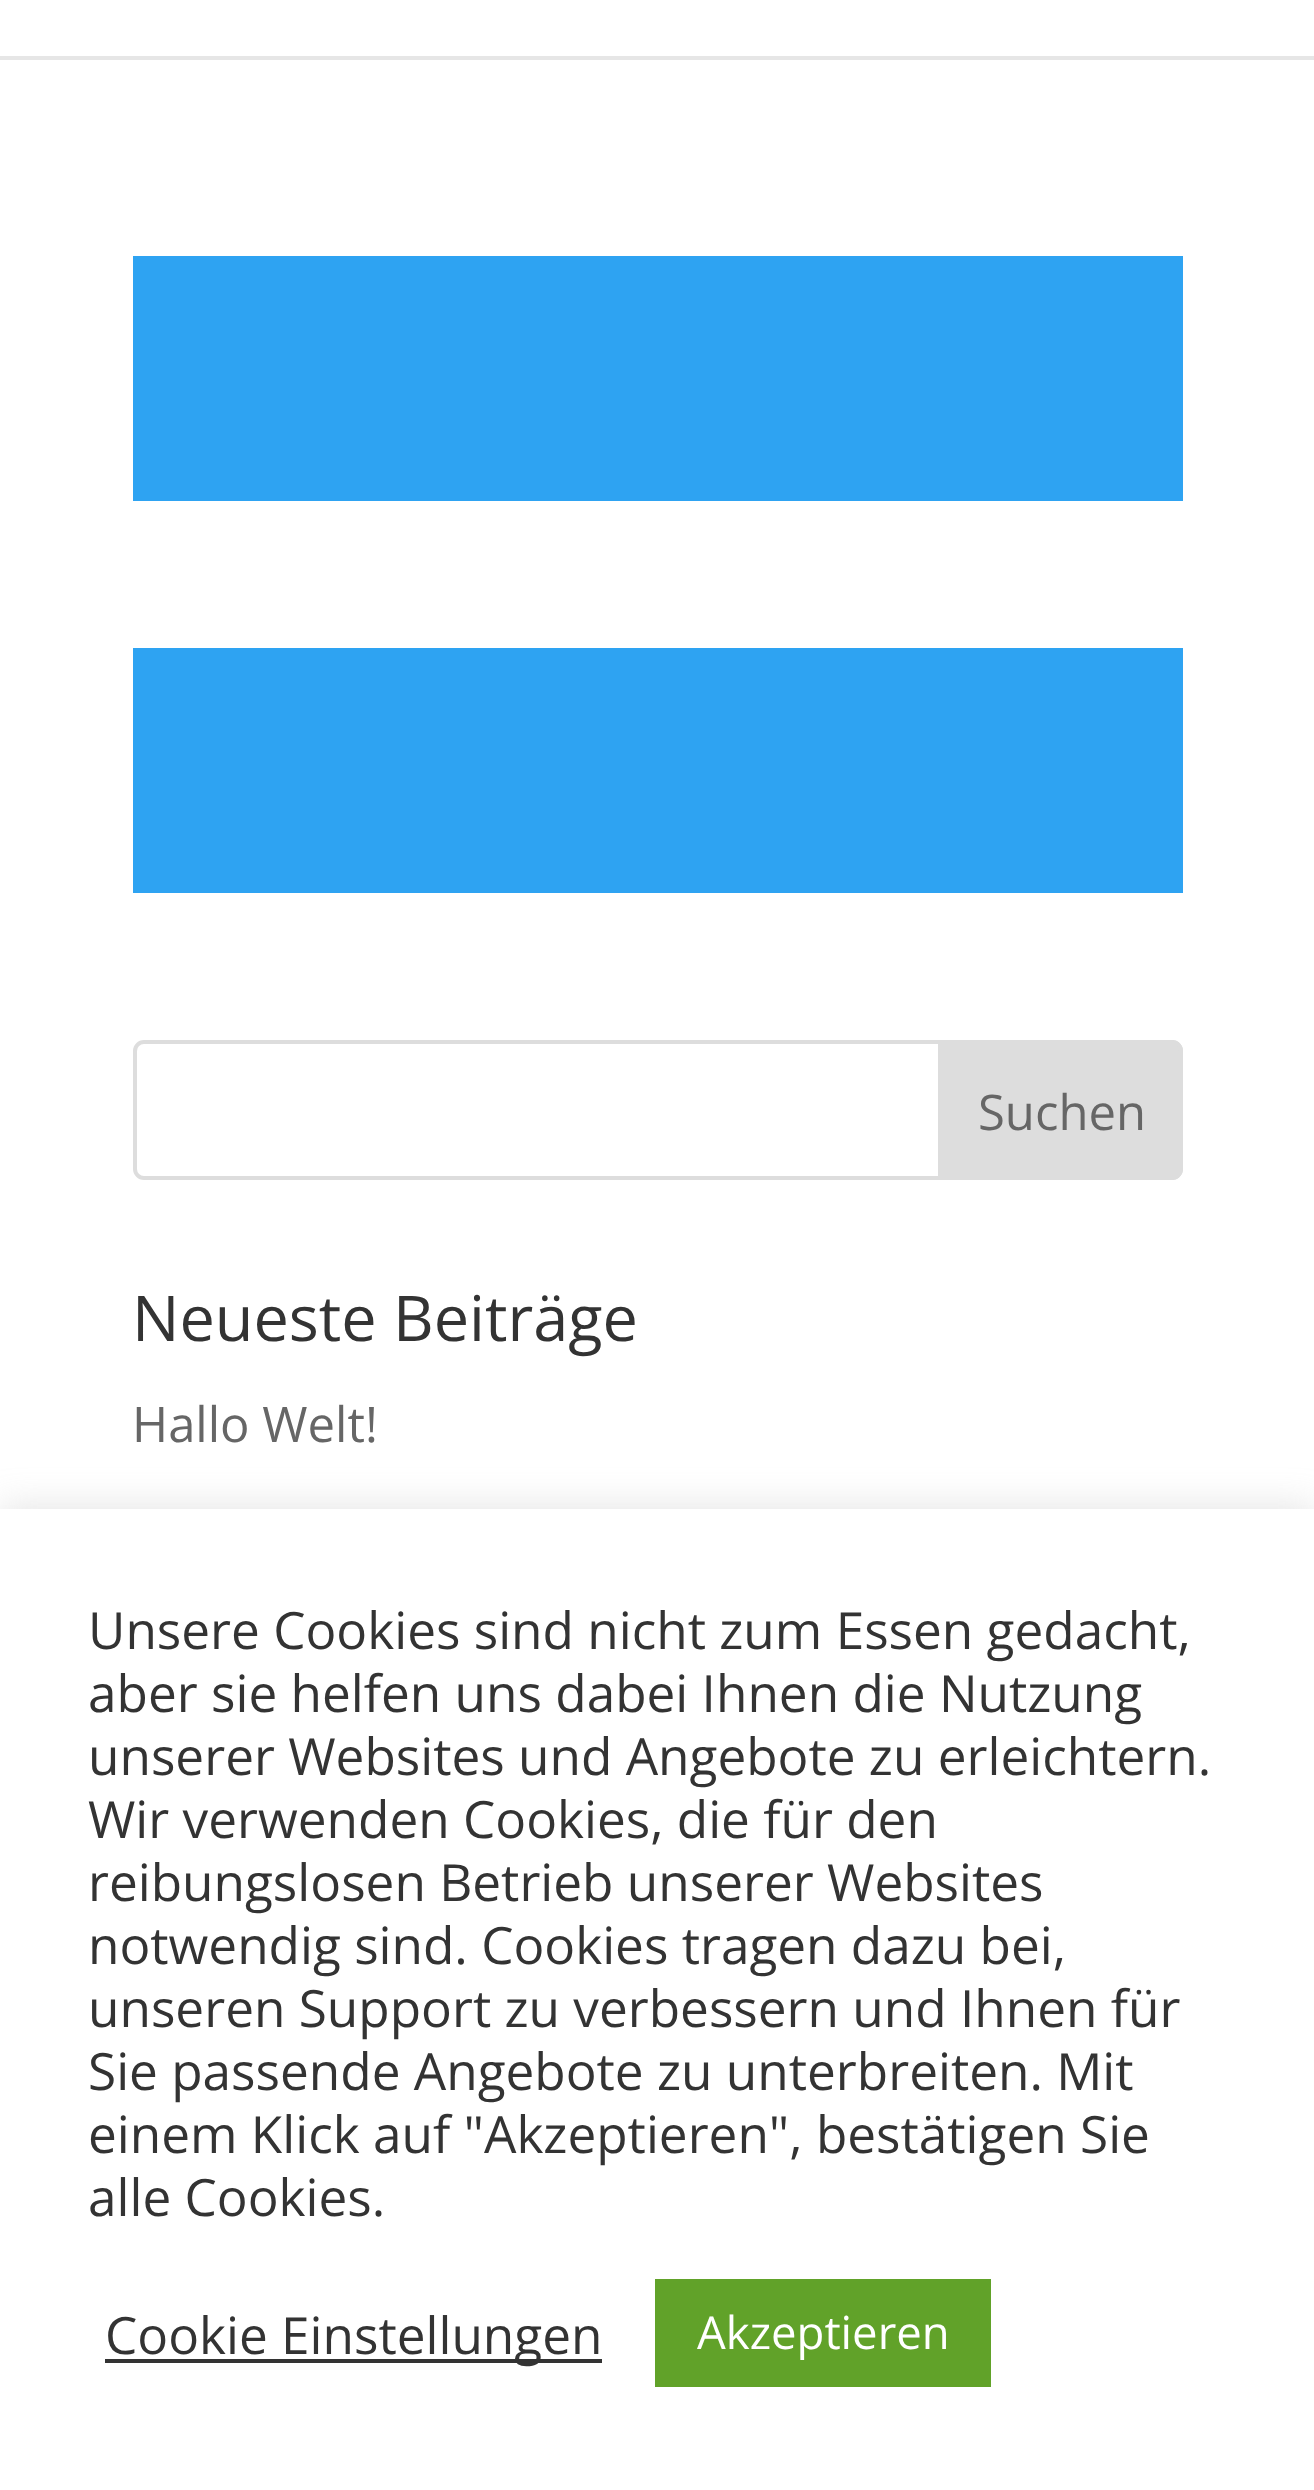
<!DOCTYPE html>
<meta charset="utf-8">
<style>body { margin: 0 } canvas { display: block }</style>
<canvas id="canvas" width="1314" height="2490"></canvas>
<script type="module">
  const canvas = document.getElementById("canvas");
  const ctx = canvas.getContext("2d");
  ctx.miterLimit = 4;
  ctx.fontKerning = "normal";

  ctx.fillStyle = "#ffffff";
  ctx.fillRect(0, 0, 1314, 2490);
  ctx.fillStyle = "#e6e6e6";
  ctx.fillRect(0, 56, 1314, 4);
  ctx.fillStyle = "#2ea3f2";
  ctx.fillRect(133, 256, 1050, 245);
  ctx.fillRect(133, 648, 1050, 245);
  ctx.beginPath();
  ctx.roundRect(135, 1042, 1046, 136, 9);
  ctx.strokeStyle = "#dddddd";
  ctx.lineWidth = 4;
  ctx.stroke();
  ctx.fillStyle = "#dddddd";
  ctx.beginPath();
  ctx.roundRect(940, 1042, 241, 136, [0, 9, 9, 0]);
  ctx.fill();
  ctx.stroke();
  ctx.font = "49px Open Sans";
  ctx.fillStyle = "#666666";
  ctx.fillText("Suchen", 978, 1130);
  ctx.font = "63px Open Sans";
  ctx.fillStyle = "#333333";
  ctx.fillText("Neueste Beiträge", 132, 1341);
  ctx.font = "49px Open Sans";
  ctx.fillStyle = "#666666";
  ctx.fillText("Hallo Welt!", 132, 1442);
  ctx.fillStyle = "rgba(172, 171, 171, 0.3)";
  ctx.filter = "blur(17.5px)";
  ctx.beginPath();
  ctx.rect(0, 1505, 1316, 984);
  ctx.fill();
  ctx.filter = "none";
  ctx.fillStyle = "#ffffff";
  ctx.fillRect(0, 1509, 1314, 981);
  ctx.font = "51.3px Open Sans";
  ctx.fillStyle = "#333333";
  ctx.fillText("Unsere Cookies sind nicht zum Essen gedacht,", 88, 1649);
  ctx.fillText("aber sie helfen uns dabei Ihnen die Nutzung", 88, 1712);
  ctx.fillText("unserer Websites und Angebote zu erleichtern.", 88, 1775);
  ctx.fillText("Wir verwenden Cookies, die für den", 88, 1838);
  ctx.fillText("reibungslosen Betrieb unserer Websites", 88, 1901);
  ctx.fillText("notwendig sind. Cookies tragen dazu bei,", 88, 1964);
  ctx.fillText("unseren Support zu verbessern und Ihnen für", 88, 2027);
  ctx.fillText("Sie passende Angebote zu unterbreiten. Mit", 88, 2090);
  ctx.fillText("einem Klick auf \"Akzeptieren\", bestätigen Sie", 88, 2153);
  ctx.fillText("alle Cookies.", 88, 2216);
  ctx.fillRect(105, 2359, 497, 4);
  ctx.fillText("Cookie Einstellungen", 105, 2354);
  ctx.fillStyle = "#61a229";
  ctx.fillRect(655, 2279, 336, 108);
  ctx.font = "45.5px Open Sans";
  ctx.fillStyle = "#ffffff";
  ctx.fillText("Akzeptieren", 697, 2349);
</script>
